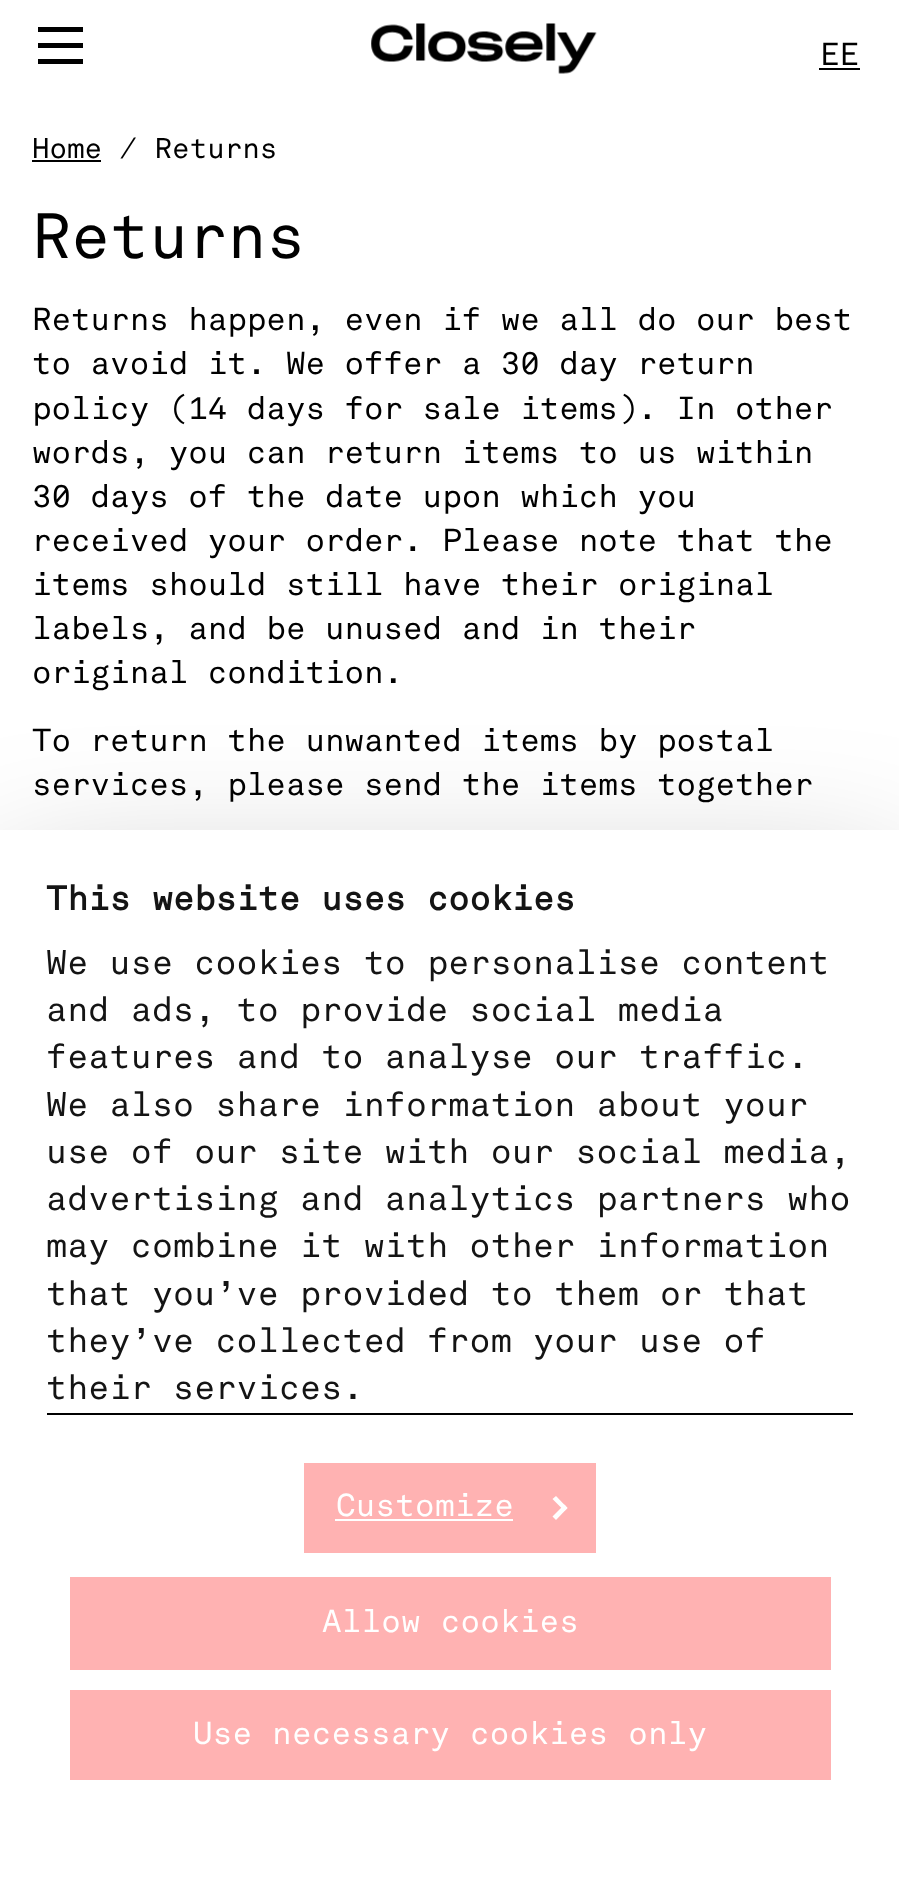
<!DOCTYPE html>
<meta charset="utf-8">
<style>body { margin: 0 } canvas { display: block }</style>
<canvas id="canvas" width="899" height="1882"></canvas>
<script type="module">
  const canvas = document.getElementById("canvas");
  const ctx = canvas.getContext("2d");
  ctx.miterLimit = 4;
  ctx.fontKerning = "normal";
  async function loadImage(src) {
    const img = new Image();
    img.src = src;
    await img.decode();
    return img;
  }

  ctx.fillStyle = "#ffffff";
  ctx.fillRect(0, 0, 899, 1882);
  ctx.fillStyle = "#000000";
  ctx.fillRect(38, 43, 45, 5);
  ctx.fillRect(38, 27, 45, 5);
  ctx.fillRect(38, 59, 45, 5);
  ctx.drawImage(await loadImage("img1.png"), 371, 23, 226, 51);
  ctx.font = "31.5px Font";
  ctx.fillText("EE", 820, 65);
  ctx.fillRect(819, 68, 41, 2);
  ctx.font = "28.25px Font";
  ctx.fillText("Home / Returns", 32, 158);
  ctx.fillRect(32, 160, 69, 2);
  ctx.font = "63px Font";
  ctx.fillText("Returns", 32, 258);
  ctx.font = "31.5px Font";
  ctx.fillText("Returns happen, even if we all do our best", 32, 330);
  ctx.fillText("to avoid it. We offer a 30 day return", 32, 374);
  ctx.fillText("policy (14 days for sale items). In other", 32, 419);
  ctx.fillText("words, you can return items to us within", 32, 463);
  ctx.fillText("30 days of the date upon which you", 32, 507);
  ctx.fillText("received your order. Please note that the", 32, 551);
  ctx.fillText("items should still have their original", 32, 595);
  ctx.fillText("labels, and be unused and in their", 32, 639);
  ctx.fillText("original condition.", 32, 683);
  ctx.fillText("To return the unwanted items by postal", 32, 751);
  ctx.fillText("services, please send the items together", 32, 795);
  ctx.fillStyle = "rgba(0, 0, 0, 0.3)";
  ctx.filter = "blur(79px)";
  ctx.beginPath();
  ctx.rect(0, 898, 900, 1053);
  ctx.fill();
  ctx.filter = "none";
  ctx.fillStyle = "#ffffff";
  ctx.fillRect(0, 830, 899, 1052);
  ctx.fillStyle = "#000000";
  ctx.fillRect(47, 1413, 806, 2);
  ctx.letterSpacing = "0.25px";
  ctx.font = "bold 33.75px Font";
  ctx.fillStyle = "#141414";
  ctx.fillText("This website uses cookies", 46, 910);
  ctx.font = "33.75px Font";
  ctx.fillText("We use cookies to personalise content", 46, 974);
  ctx.fillText("and ads, to provide social media", 46, 1021);
  ctx.fillText("features and to analyse our traffic.", 46, 1068);
  ctx.fillText("We also share information about your", 46, 1116);
  ctx.fillText("use of our site with our social media,", 46, 1163);
  ctx.fillText("advertising and analytics partners who", 46, 1210);
  ctx.fillText("may combine it with other information", 46, 1257);
  ctx.fillText("that you’ve provided to them or that", 46, 1305);
  ctx.fillText("they’ve collected from your use of", 46, 1352);
  ctx.fillText("their services.", 46, 1399);
  ctx.fillStyle = "#ffb2b2";
  ctx.fillRect(304, 1463, 292, 90);
  ctx.font = "31.5px Font";
  ctx.fillStyle = "#ffffff";
  ctx.fillText("Customize", 336, 1516);
  ctx.fillRect(335, 1519, 178, 2);
  ctx.beginPath();
  ctx.moveTo(556, 1496);
  ctx.lineTo(567.5, 1508);
  ctx.lineTo(564.5, 1511);
  ctx.lineTo(552.5, 1499);
  ctx.closePath();
  ctx.fill();
  ctx.beginPath();
  ctx.moveTo(564.5, 1504.5);
  ctx.lineTo(567.5, 1508);
  ctx.lineTo(556, 1520);
  ctx.lineTo(552.5, 1516.5);
  ctx.closePath();
  ctx.fill();
  ctx.fillStyle = "#ffb2b2";
  ctx.fillRect(70, 1577, 761, 93);
  ctx.fillStyle = "#ffffff";
  ctx.fillText("Allow cookies", 322, 1632);
  ctx.fillStyle = "#ffb2b2";
  ctx.fillRect(70, 1690, 761, 90);
  ctx.fillStyle = "#ffffff";
  ctx.fillText("Use necessary cookies only", 193, 1744);
</script>
